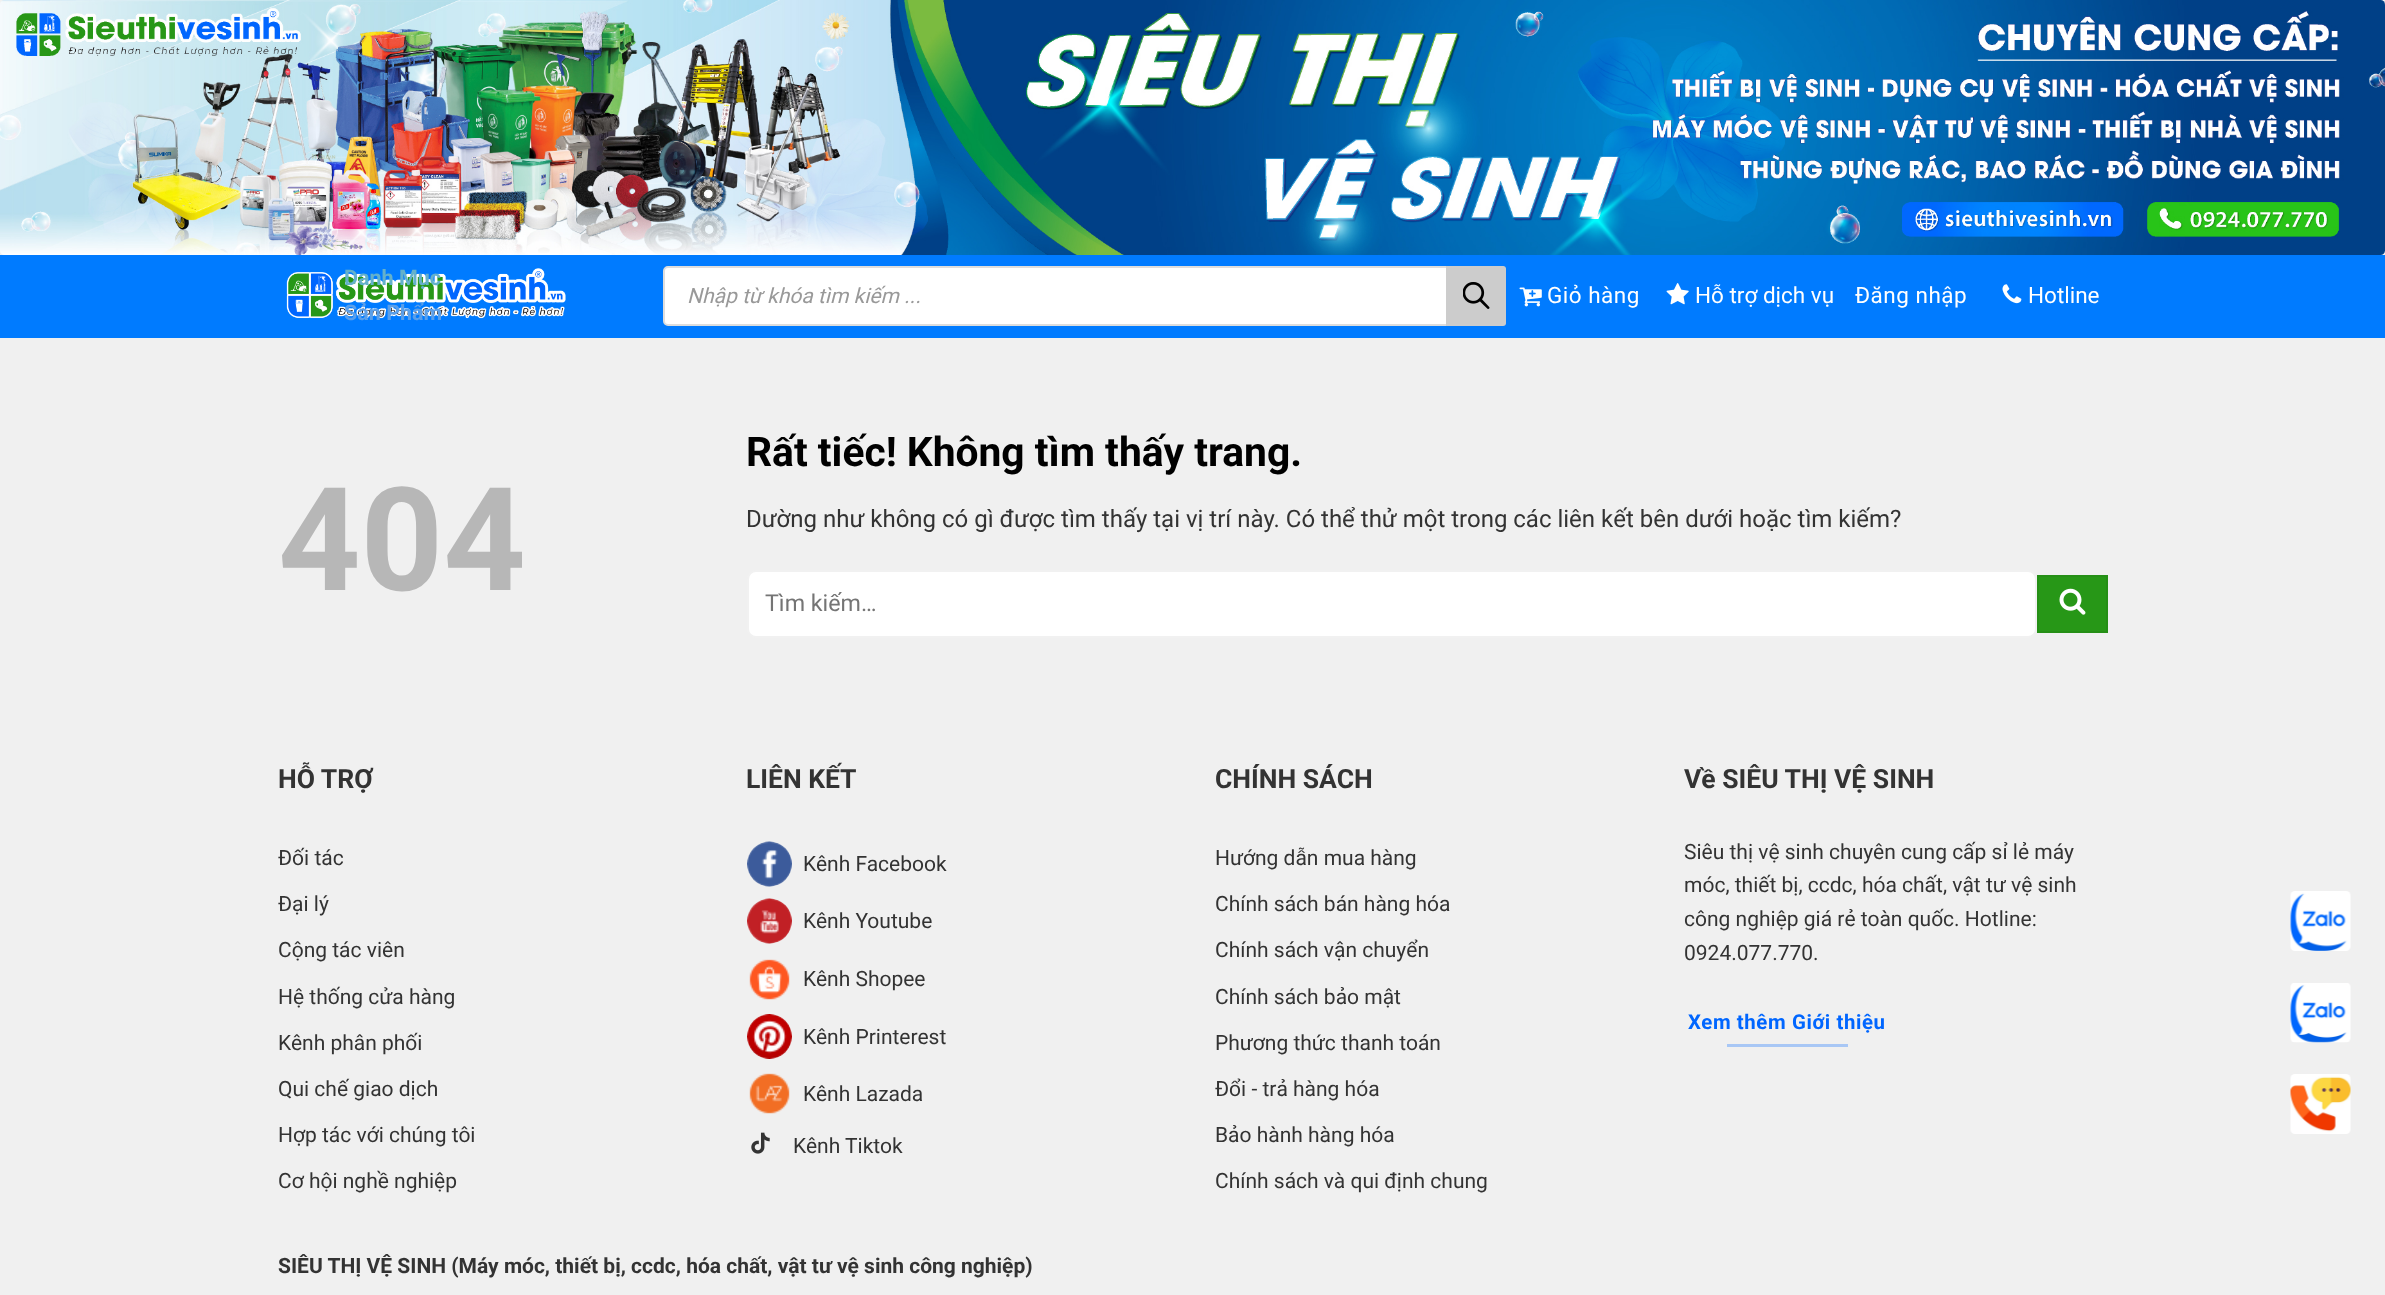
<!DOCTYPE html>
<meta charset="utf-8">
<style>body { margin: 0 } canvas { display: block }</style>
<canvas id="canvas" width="2385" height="1295"></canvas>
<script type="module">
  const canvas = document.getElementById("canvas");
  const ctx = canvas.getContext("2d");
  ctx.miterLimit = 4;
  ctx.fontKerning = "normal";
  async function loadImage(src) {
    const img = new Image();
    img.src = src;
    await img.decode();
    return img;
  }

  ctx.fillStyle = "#f0f0f0";
  ctx.fillRect(0, 0, 2385, 1295);
  ctx.drawImage(await loadImage("img1.png"), 0, 0, 2385, 255);
  ctx.fillStyle = "#007bff";
  ctx.fillRect(0, 255, 2385, 83);
  ctx.drawImage(await loadImage("img2.png"), 286, 268, 280, 51);
  ctx.font = "bold 21.5px Roboto";
  ctx.fillStyle = "#64b1cb";
  ctx.fillText("Danh Mục", 344, 285);
  ctx.fillStyle = "#5b9fe9";
  ctx.fillText("Sản Phẩm", 344, 320);
  ctx.fillStyle = "#ffffff";
  ctx.beginPath();
  ctx.roundRect(664, 267, 841, 58, 4);
  ctx.fill();
  ctx.strokeStyle = "#dddddd";
  ctx.lineWidth = 2;
  ctx.stroke();
  ctx.font = "italic 21px Roboto";
  ctx.fillStyle = "#999999";
  ctx.fillText("Nhập từ khóa tìm kiếm ...", 687, 303);
  ctx.fillStyle = "#cccccc";
  ctx.beginPath();
  ctx.roundRect(1446, 266, 60, 60, [0, 3, 3, 0]);
  ctx.fill();
  ctx.drawImage(await loadImage("img3.png"), 1463, 282, 27, 27);
  ctx.drawImage(await loadImage("img4.png"), 1519, 287, 23, 20);
  ctx.letterSpacing = "0.5px";
  ctx.font = "22.5px Roboto";
  ctx.fillStyle = "#ffffff";
  ctx.fillText("Giỏ hàng", 1547, 303);
  ctx.drawImage(await loadImage("img5.png"), 1666, 283, 23, 22);
  ctx.letterSpacing = "0px";
  ctx.fillText("Hỗ trợ dịch vụ", 1695, 303);
  ctx.letterSpacing = "0.5px";
  ctx.fillText("Đăng nhập", 1855, 303);
  ctx.drawImage(await loadImage("img6.png"), 2002, 284, 20, 20);
  ctx.letterSpacing = "0px";
  ctx.fillText("Hotline", 2028, 303);
  ctx.font = "bold 144px Roboto";
  ctx.fillStyle = "#b7b7b7";
  ctx.fillText("404", 278, 590);
  ctx.font = "bold 40.75px Roboto";
  ctx.fillStyle = "#000000";
  ctx.fillText("Rất tiếc! Không tìm thấy trang.", 746, 466);
  ctx.font = "24px Roboto";
  ctx.fillStyle = "#333333";
  ctx.fillText("Dường như không có gì được tìm thấy tại vị trí này. Có thể thử một trong các liên kết bên dưới hoặc tìm kiếm?", 746, 527);
  ctx.fillStyle = "#ffffff";
  ctx.beginPath();
  ctx.roundRect(748, 571, 1288, 66, 8);
  ctx.fill();
  ctx.strokeStyle = "#f1f1f1";
  ctx.stroke();
  ctx.font = "23.25px Roboto";
  ctx.fillStyle = "#757575";
  ctx.fillText("Tìm kiếm…", 765, 611);
  ctx.fillStyle = "#279717";
  ctx.beginPath();
  ctx.rect(2038, 576, 69, 56);
  ctx.fill();
  ctx.strokeStyle = "#258f16";
  ctx.stroke();
  ctx.drawImage(await loadImage("img7.png"), 2059, 588, 27, 27);
  ctx.font = "bold 26.5px Roboto";
  ctx.fillStyle = "#333333";
  ctx.fillText("HỖ TRỢ", 278, 788);
  ctx.font = "21px Roboto";
  ctx.fillText("Đối tác", 278, 865);
  ctx.fillText("Đại lý", 278, 911);
  ctx.fillText("Cộng tác viên", 278, 957);
  ctx.fillText("Hệ thống cửa hàng", 278, 1004);
  ctx.fillText("Kênh phân phối", 278, 1050);
  ctx.fillText("Qui chế giao dịch", 278, 1096);
  ctx.fillText("Hợp tác với chúng tôi", 278, 1142);
  ctx.fillText("Cơ hội nghề nghiệp", 278, 1188);
  ctx.font = "bold 26.5px Roboto";
  ctx.fillText("LIÊN KẾT", 746, 788);
  ctx.drawImage(await loadImage("img8.png"), 747, 841, 45, 46);
  ctx.font = "21px Roboto";
  ctx.fillText("Kênh Facebook", 803, 871);
  ctx.drawImage(await loadImage("img9.png"), 747, 898, 45, 46);
  ctx.fillText("Kênh Youtube", 803, 928);
  ctx.drawImage(await loadImage("img10.png"), 749, 959, 41, 41);
  ctx.fillText("Kênh Shopee", 803, 986);
  ctx.drawImage(await loadImage("img11.png"), 747, 1014, 45, 45);
  ctx.fillText("Kênh Printerest", 803, 1044);
  ctx.drawImage(await loadImage("img12.png"), 749, 1073, 41, 41);
  ctx.fillText("Kênh Lazada", 803, 1101);
  ctx.drawImage(await loadImage("img13.png"), 751, 1132, 19, 22);
  ctx.fillText("Kênh Tiktok", 793, 1153);
  ctx.font = "bold 26.5px Roboto";
  ctx.fillText("CHÍNH SÁCH", 1215, 788);
  ctx.font = "21px Roboto";
  ctx.fillText("Hướng dẫn mua hàng", 1215, 865);
  ctx.fillText("Chính sách bán hàng hóa", 1215, 911);
  ctx.fillText("Chính sách vận chuyển", 1215, 957);
  ctx.fillText("Chính sách bảo mật", 1215, 1004);
  ctx.fillText("Phương thức thanh toán", 1215, 1050);
  ctx.fillText("Đổi - trả hàng hóa", 1215, 1096);
  ctx.fillText("Bảo hành hàng hóa", 1215, 1142);
  ctx.fillText("Chính sách và qui định chung", 1215, 1188);
  ctx.font = "bold 26.5px Roboto";
  ctx.fillText("Về SIÊU THỊ VỆ SINH", 1684, 788);
  ctx.font = "21px Roboto";
  ctx.fillText("Siêu thị vệ sinh chuyên cung cấp sỉ lẻ máy", 1684, 859);
  ctx.fillText("móc, thiết bị, ccdc, hóa chất, vật tư vệ sinh", 1684, 892);
  ctx.fillText("công nghiệp giá rẻ toàn quốc. Hotline:", 1684, 926);
  ctx.fillText("0924.077.770.", 1684, 960);
  ctx.letterSpacing = "0.6px";
  ctx.font = "bold 20.4px Roboto";
  ctx.fillStyle = "#0066ff";
  ctx.fillText("Xem thêm Giới thiệu", 1688, 1029);
  ctx.fillStyle = "#a8c7f5";
  ctx.fillRect(1727, 1044, 121, 3);
  ctx.letterSpacing = "0px";
  ctx.font = "bold 21px Roboto";
  ctx.fillStyle = "#333333";
  ctx.fillText("SIÊU THỊ VỆ SINH (Máy móc, thiết bị, ccdc, hóa chất, vật tư vệ sinh công nghiệp)", 278, 1273);
  ctx.drawImage(await loadImage("img14.png"), 2290, 891, 61, 60);
  ctx.drawImage(await loadImage("img15.png"), 2290, 983, 61, 60);
  ctx.drawImage(await loadImage("img16.png"), 2290, 1074, 61, 60);
</script>
